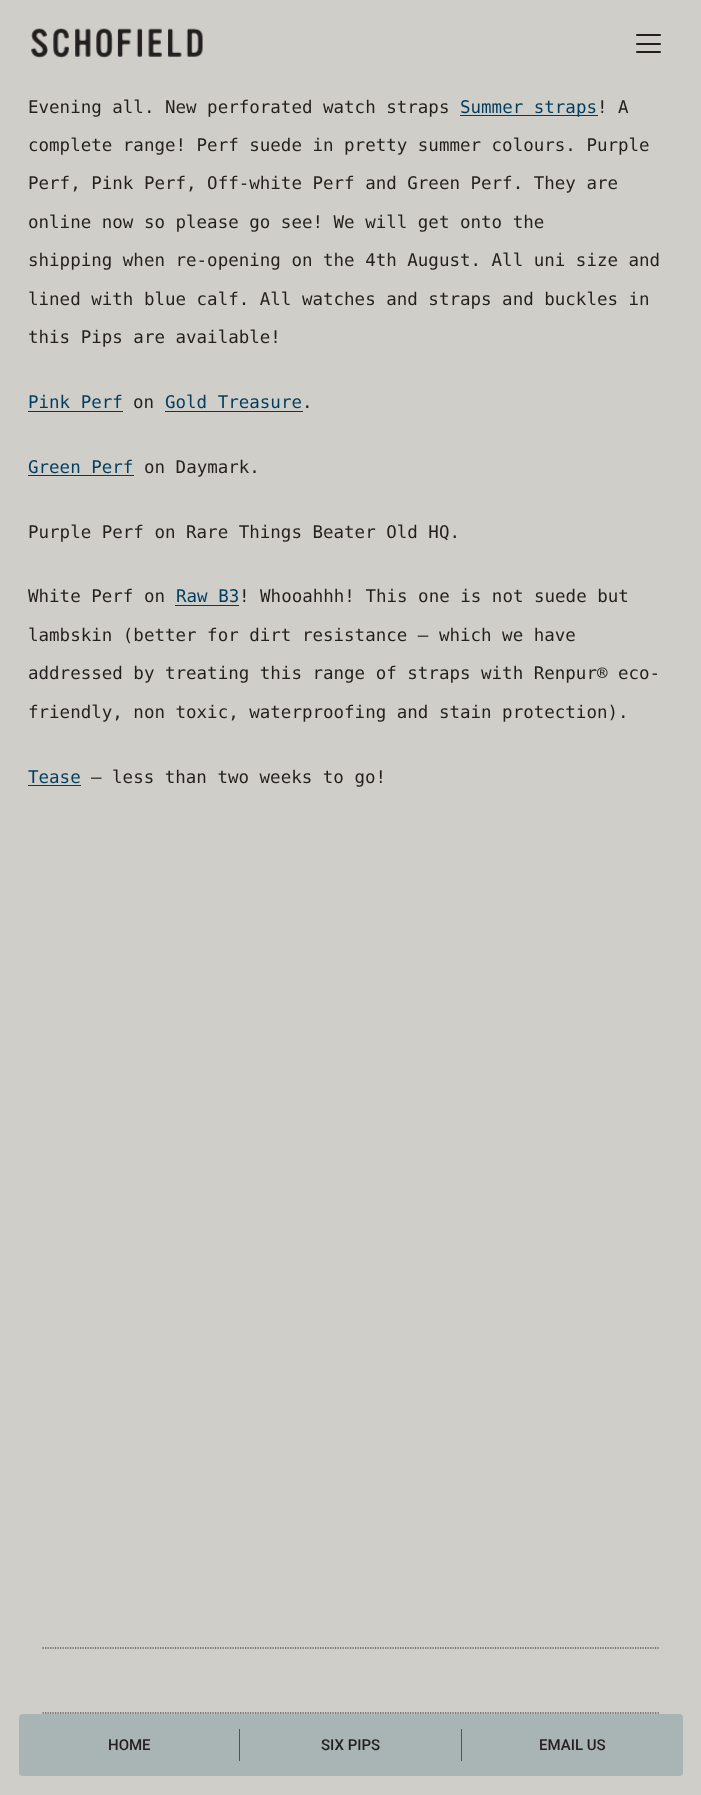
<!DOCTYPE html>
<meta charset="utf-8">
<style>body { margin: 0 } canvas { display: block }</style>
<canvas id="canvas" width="701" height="1795"></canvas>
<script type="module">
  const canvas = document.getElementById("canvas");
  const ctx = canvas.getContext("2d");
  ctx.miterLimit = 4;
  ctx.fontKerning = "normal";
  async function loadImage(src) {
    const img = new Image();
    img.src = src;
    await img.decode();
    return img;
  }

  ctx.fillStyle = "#cfcec8";
  ctx.fillRect(0, 0, 701, 1795);
  ctx.drawImage(await loadImage("img1.png"), 31, 28, 172, 30);
  ctx.fillStyle = "#231f1e";
  ctx.beginPath();
  ctx.roundRect(636, 34, 25, 2, 1);
  ctx.fill();
  ctx.beginPath();
  ctx.roundRect(636, 43, 25, 2, 1);
  ctx.fill();
  ctx.beginPath();
  ctx.roundRect(636, 51, 25, 2, 1);
  ctx.fill();
  ctx.font = "17.5px DejaVu Sans Mono";
  ctx.fillText("Evening all. New perforated watch straps", 28, 113);
  ctx.fillStyle = "#003c5f";
  ctx.fillRect(460, 115, 138, 1);
  ctx.fillText("Summer straps", 460, 113);
  ctx.fillStyle = "#231f1e";
  ctx.fillText("! A", 597, 113);
  ctx.fillText("complete range! Perf suede in pretty summer colours. Purple", 28, 151);
  ctx.fillText("Perf, Pink Perf, Off-white Perf and Green Perf. They are", 28, 189);
  ctx.fillText("online now so please go see! We will get onto the", 28, 228);
  ctx.fillText("shipping when re-opening on the 4th August. All uni size and", 28, 266);
  ctx.fillText("lined with blue calf. All watches and straps and buckles in", 28, 305);
  ctx.fillText("this Pips are available!", 28, 343);
  ctx.fillStyle = "#003c5f";
  ctx.fillText("Pink Perf", 28, 408);
  ctx.fillRect(28, 411, 95, 1);
  ctx.fillStyle = "#231f1e";
  ctx.fillText("on", 133, 408);
  ctx.fillStyle = "#003c5f";
  ctx.fillText("Gold Treasure", 165, 408);
  ctx.fillRect(165, 411, 138, 1);
  ctx.fillStyle = "#231f1e";
  ctx.fillText(".", 302, 408);
  ctx.fillStyle = "#003c5f";
  ctx.fillText("Green Perf", 28, 473);
  ctx.fillRect(28, 475, 106, 1);
  ctx.fillStyle = "#231f1e";
  ctx.fillText("on Daymark.", 144, 473);
  ctx.fillText("Purple Perf on Rare Things Beater Old HQ.", 28, 538);
  ctx.fillText("White Perf on", 28, 602);
  ctx.fillStyle = "#003c5f";
  ctx.fillText("Raw B3", 176, 602);
  ctx.fillRect(175, 605, 64, 1);
  ctx.fillStyle = "#231f1e";
  ctx.fillText("! Whooahhh! This one is not suede but", 239, 602);
  ctx.fillText("lambskin (better for dirt resistance – which we have", 28, 641);
  ctx.fillText("addressed by treating this range of straps with Renpur® eco-", 28, 679);
  ctx.fillText("friendly, non toxic, waterproofing and stain protection).", 28, 718);
  ctx.fillStyle = "#003c5f";
  ctx.fillText("Tease", 28, 783);
  ctx.fillRect(28, 785, 53, 1);
  ctx.fillStyle = "#231f1e";
  ctx.fillText("– less than two weeks to go!", 91, 783);
  ctx.beginPath();
  ctx.moveTo(42.5, 1648);
  ctx.lineTo(659, 1648);
  ctx.strokeStyle = "#231f1e";
  ctx.lineWidth = 1.2;
  ctx.setLineDash([1.25, 1.25]);
  ctx.stroke();
  ctx.beginPath();
  ctx.moveTo(42.5, 1713);
  ctx.lineTo(659, 1713);
  ctx.stroke();
  ctx.fillStyle = "#a8b5b4";
  ctx.beginPath();
  ctx.roundRect(19, 1714, 664, 62, 4);
  ctx.fill();
  ctx.font = "500 15px Roboto";
  ctx.fillStyle = "#231f1e";
  ctx.fillText("HOME", 108, 1750);
  ctx.fillStyle = "#535353";
  ctx.fillRect(239, 1729, 1, 32);
  ctx.fillStyle = "#231f1e";
  ctx.fillText("SIX PIPS", 321, 1750);
  ctx.fillStyle = "#535353";
  ctx.fillRect(461, 1729, 1, 32);
  ctx.fillStyle = "#231f1e";
  ctx.fillText("EMAIL US", 539, 1750);
</script>
